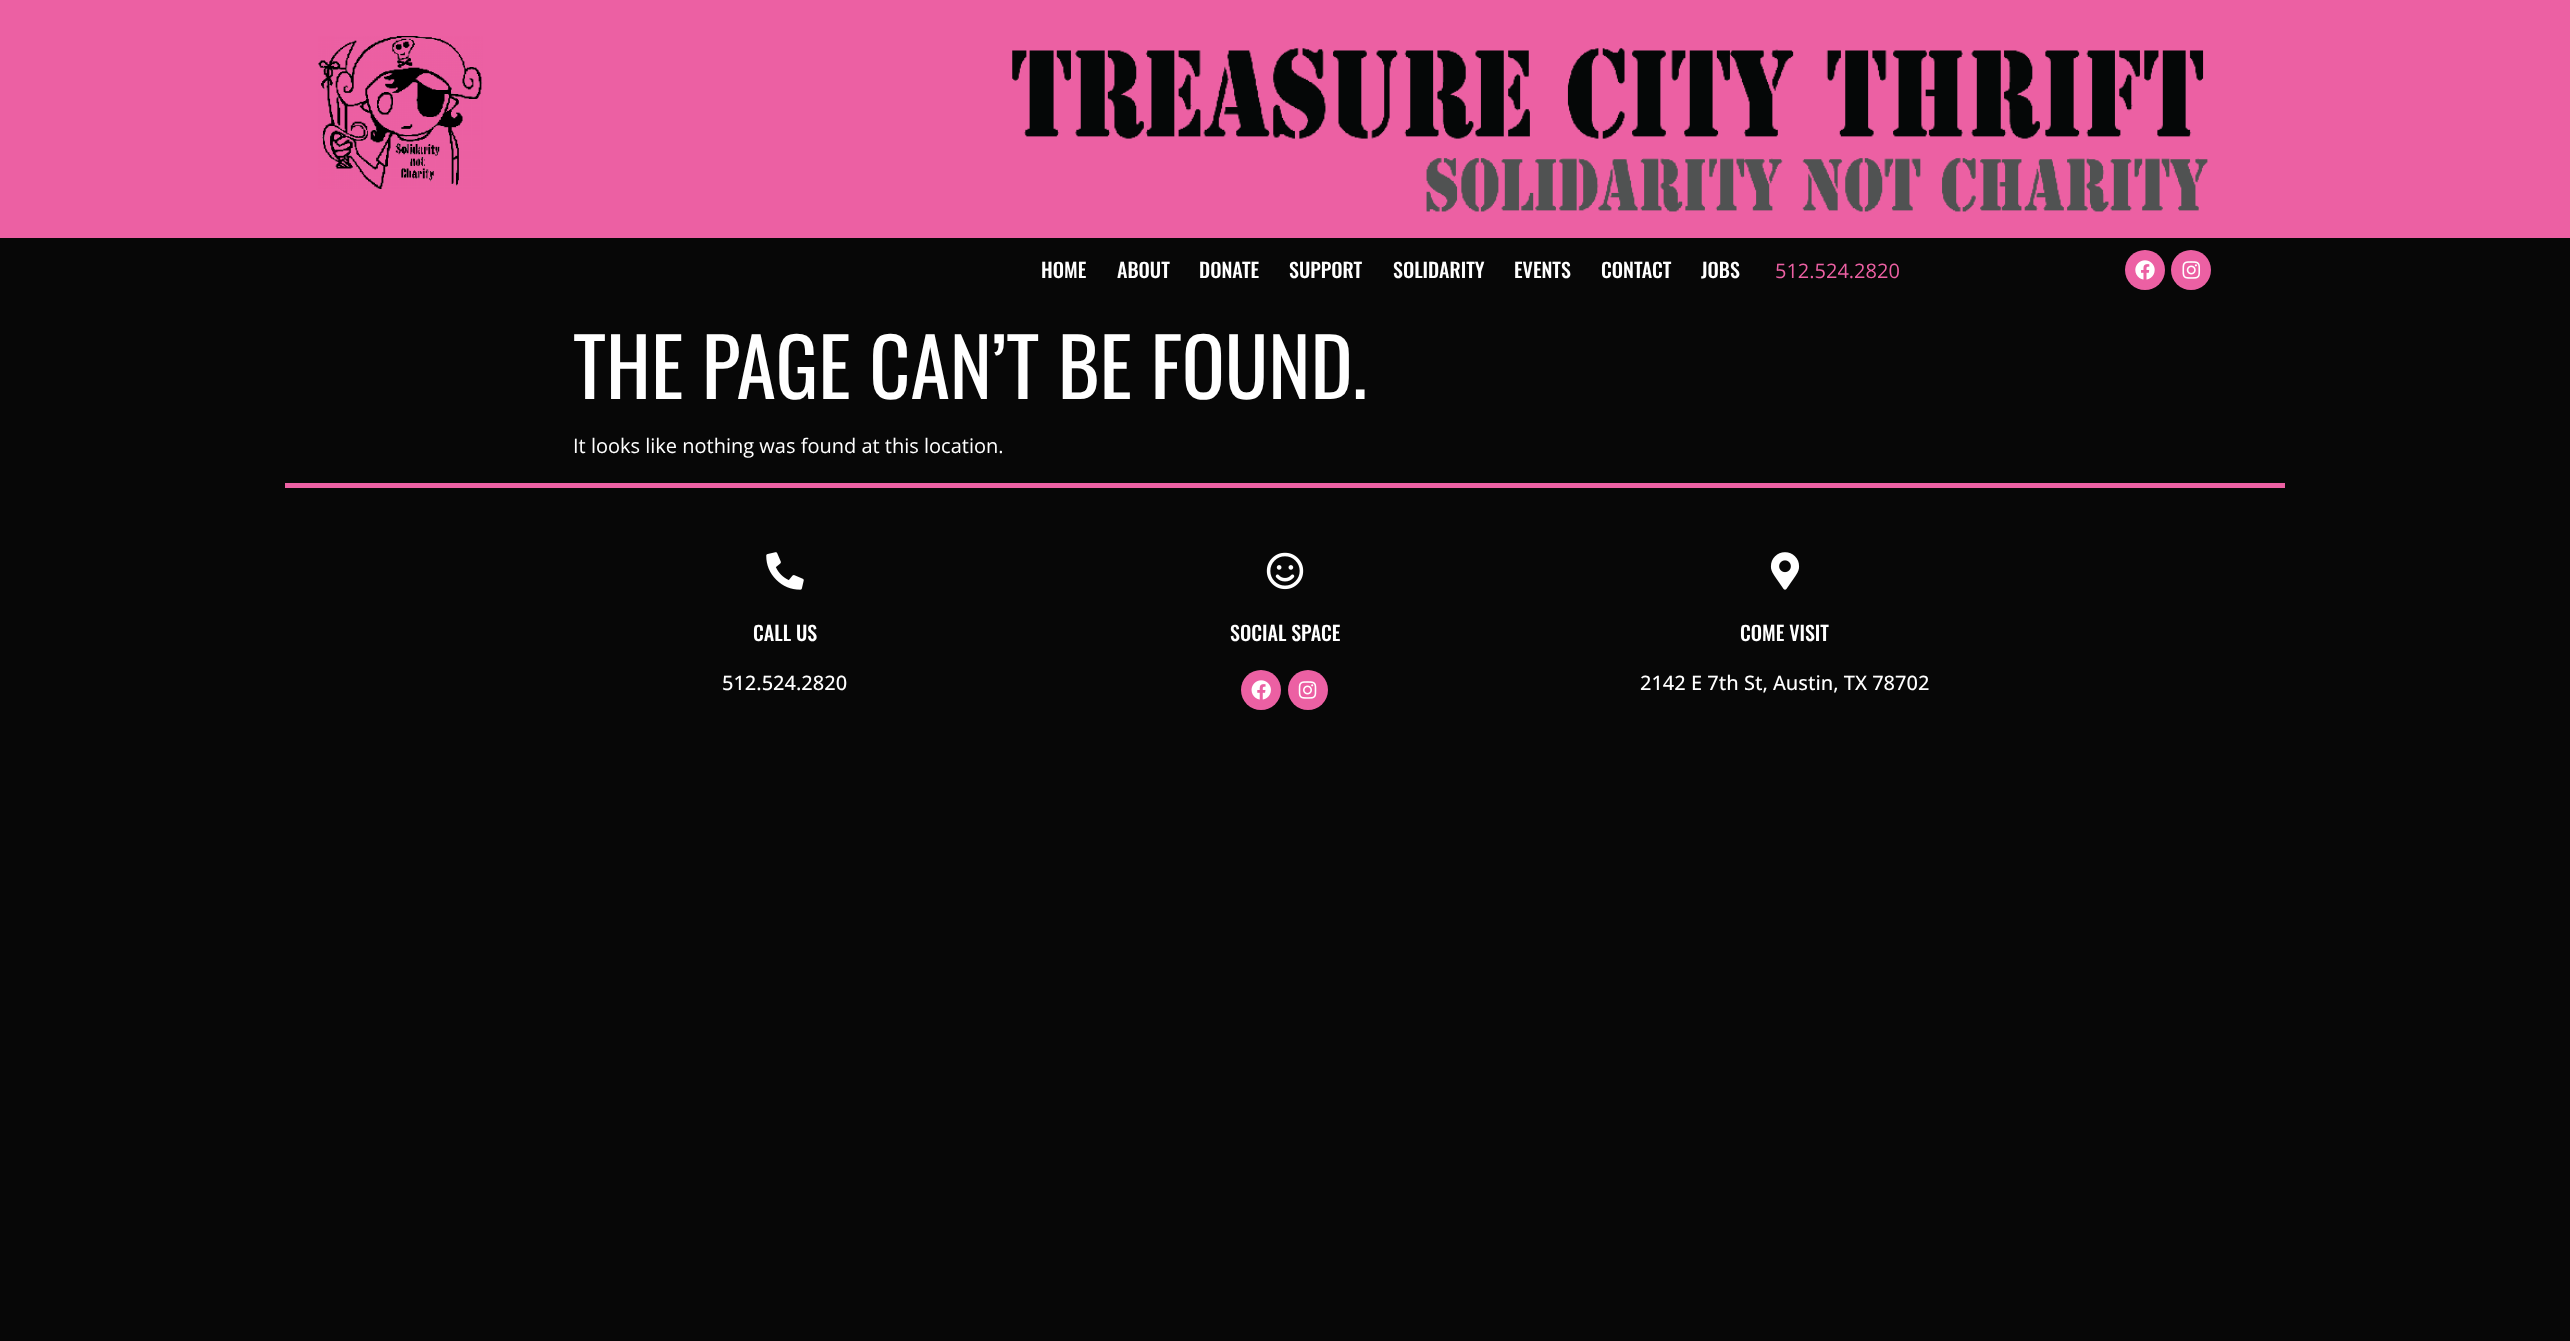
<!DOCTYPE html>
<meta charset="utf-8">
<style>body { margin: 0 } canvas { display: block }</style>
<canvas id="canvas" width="2570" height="1341"></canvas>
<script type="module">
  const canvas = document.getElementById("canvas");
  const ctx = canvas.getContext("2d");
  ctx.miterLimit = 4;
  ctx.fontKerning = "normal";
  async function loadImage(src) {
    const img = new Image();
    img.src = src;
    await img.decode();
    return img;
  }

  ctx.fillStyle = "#070707";
  ctx.fillRect(0, 0, 2570, 1341);
  ctx.fillStyle = "#ec60a3";
  ctx.fillRect(0, 0, 2570, 238);
  ctx.drawImage(await loadImage("img1.png"), 318, 36, 165, 153);
  ctx.drawImage(await loadImage("img2.png"), 1012, 48, 1196, 164);
  ctx.font = "500 20px Oswald";
  ctx.fillStyle = "#ffffff";
  ctx.fillText("HOME", 1041, 278);
  ctx.fillText("ABOUT", 1117, 278);
  ctx.fillText("DONATE", 1199, 278);
  ctx.fillText("SUPPORT", 1289, 278);
  ctx.fillText("SOLIDARITY", 1393, 278);
  ctx.fillText("EVENTS", 1514, 278);
  ctx.fillText("CONTACT", 1601, 278);
  ctx.fillText("JOBS", 1701, 278);
  ctx.font = "20px Open Sans";
  ctx.fillStyle = "#ec60a3";
  ctx.fillText("512.524.2820", 1775, 278);
  ctx.beginPath();
  ctx.arc(2145, 270, 20, 0, Math.PI * 2);
  ctx.fill();
  ctx.drawImage(await loadImage("img3.png"), 2135, 260, 20, 20);
  ctx.beginPath();
  ctx.arc(2191, 270, 20, 0, Math.PI * 2);
  ctx.fill();
  ctx.drawImage(await loadImage("img4.png"), 2182, 261, 19, 18);
  ctx.font = "80px Oswald";
  ctx.fillStyle = "#ffffff";
  ctx.fillText("THE PAGE CAN’T BE FOUND.", 573, 399);
  ctx.font = "20px Open Sans";
  ctx.fillText("It looks like nothing was found at this location.", 573, 453);
  ctx.fillStyle = "#ec60a3";
  ctx.fillRect(285, 483, 2000, 5);
  ctx.drawImage(await loadImage("img5.png"), 766, 552, 38, 38);
  ctx.font = "500 20px Oswald";
  ctx.fillStyle = "#ffffff";
  ctx.fillText("CALL US", 753, 641);
  ctx.font = "500 20px Open Sans";
  ctx.fillText("512.524.2820", 722, 690);
  ctx.drawImage(await loadImage("img6.png"), 1266, 552, 38, 38);
  ctx.font = "500 20px Oswald";
  ctx.fillText("SOCIAL SPACE", 1230, 641);
  ctx.fillStyle = "#ec60a3";
  ctx.beginPath();
  ctx.arc(1261, 690, 20, 0, Math.PI * 2);
  ctx.fill();
  ctx.drawImage(await loadImage("img7.png"), 1251, 680, 20, 20);
  ctx.beginPath();
  ctx.arc(1308, 690, 20, 0, Math.PI * 2);
  ctx.fill();
  ctx.drawImage(await loadImage("img8.png"), 1298, 681, 19, 18);
  ctx.drawImage(await loadImage("img9.png"), 1770, 552, 30, 38);
  ctx.fillStyle = "#ffffff";
  ctx.fillText("COME VISIT", 1740, 641);
  ctx.font = "500 20px Open Sans";
  ctx.fillText("2142 E 7th St, Austin, TX 78702", 1640, 690);
</script>
